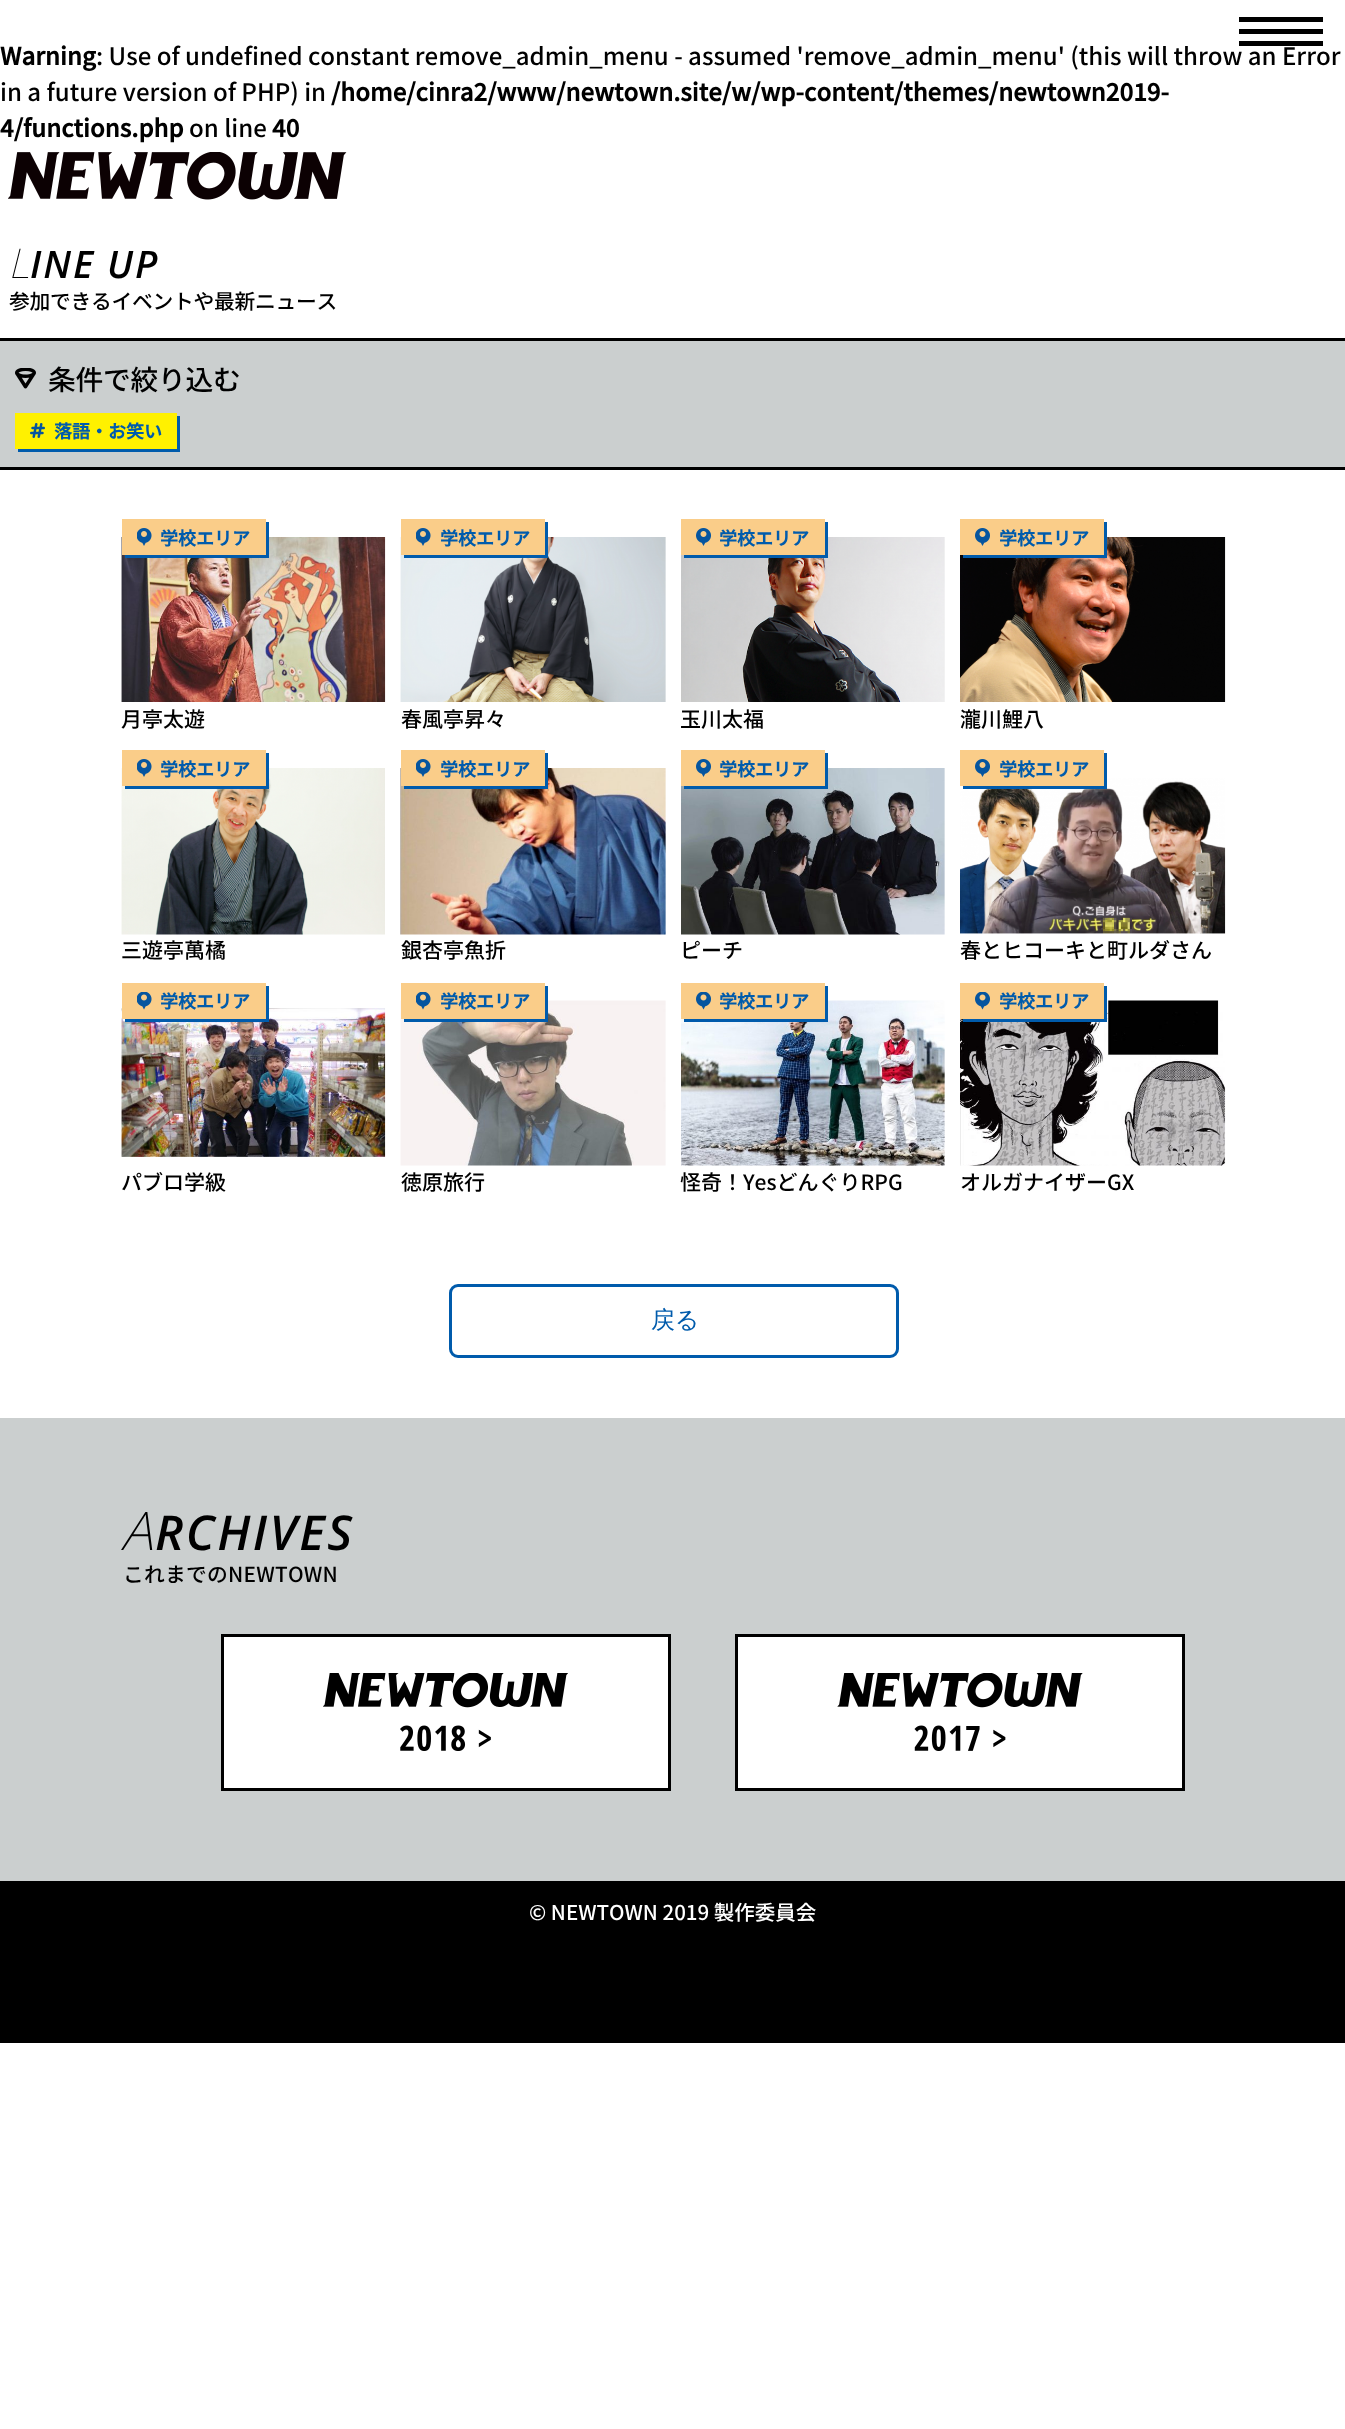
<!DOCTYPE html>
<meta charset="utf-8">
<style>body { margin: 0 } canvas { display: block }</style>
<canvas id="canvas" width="1345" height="2429"></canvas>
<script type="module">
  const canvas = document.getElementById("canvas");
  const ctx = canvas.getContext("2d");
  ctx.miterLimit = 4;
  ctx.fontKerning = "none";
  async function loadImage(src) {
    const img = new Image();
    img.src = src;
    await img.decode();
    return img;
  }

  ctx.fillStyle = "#ffffff";
  ctx.fillRect(0, 0, 1345, 2429);
  ctx.font = "bold 24px Noto Sans JP";
  ctx.fillStyle = "#000000";
  ctx.fillText("Warning", 0, 65);
  ctx.font = "100 24px Noto Sans JP";
  ctx.fillText(": Use of undefined constant remove_admin_menu - assumed 'remove_admin_menu' (this will throw an Error", 96, 65);
  ctx.fillText("in a future version of PHP) in", 0, 101);
  ctx.font = "bold 24px Noto Sans JP";
  ctx.fillText("/home/cinra2/www/newtown.site/w/wp-content/themes/newtown2019-", 331, 101);
  ctx.fillText("4/functions.php", 0, 137);
  ctx.font = "100 24px Noto Sans JP";
  ctx.fillText("on line", 189, 137);
  ctx.font = "bold 24px Noto Sans JP";
  ctx.fillText("40", 272, 137);
  ctx.fillRect(1239, 17, 84, 5);
  ctx.fillRect(1239, 29, 84, 5);
  ctx.fillRect(1239, 41, 84, 5);
  ctx.drawImage(await loadImage("img1.png"), 8, 152, 339, 48);
  ctx.fillRect(0, 338, 1345, 3);
  ctx.letterSpacing = "2px";
  ctx.font = "italic 100 41px Noto Sans";
  ctx.fillText("L", 8, 278);
  ctx.font = "italic 600 38px Open Sans";
  ctx.fillText("INE UP", 30, 278);
  ctx.letterSpacing = "-0.25px";
  ctx.font = "100 20.75px Noto Sans JP";
  ctx.fillText("参加できるイベントや最新ニュース", 9, 309);
  ctx.fillStyle = "#cbcfcf";
  ctx.fillRect(0, 341, 1345, 126);
  ctx.fillStyle = "#000000";
  ctx.fillRect(0, 467, 1345, 3);
  ctx.drawImage(await loadImage("img2.png"), 15, 368, 21, 21);
  ctx.font = "100 27.75px Noto Sans JP";
  ctx.fillText("条件で絞り込む", 48, 390);
  ctx.fillStyle = "#005bac";
  ctx.beginPath();
  ctx.moveTo(18, 448);
  ctx.lineTo(18, 452);
  ctx.lineTo(180, 452);
  ctx.lineTo(180, 416);
  ctx.lineTo(177, 416);
  ctx.lineTo(177, 448);
  ctx.closePath();
  ctx.fill();
  ctx.fillStyle = "#fff100";
  ctx.fillRect(15, 413, 162, 36);
  ctx.drawImage(await loadImage("img3.png"), 30, 423, 15, 15);
  ctx.letterSpacing = "0px";
  ctx.font = "bold 18px Noto Sans JP";
  ctx.fillStyle = "#005bac";
  ctx.fillText("落語・お笑い", 54, 438);
  ctx.drawImage(await loadImage("img5.png"), 121, 537, 265, 165);
  ctx.beginPath();
  ctx.moveTo(125, 555);
  ctx.lineTo(125, 558);
  ctx.lineTo(269, 558);
  ctx.lineTo(269, 522);
  ctx.lineTo(266, 522);
  ctx.lineTo(266, 555);
  ctx.closePath();
  ctx.fill();
  ctx.fillStyle = "#facd89";
  ctx.fillRect(122, 519, 144, 36);
  ctx.drawImage(await loadImage("img4.png"), 137, 528, 15, 18);
  ctx.fillStyle = "#005bac";
  ctx.fillText("学校エリア", 160, 545);
  ctx.font = "100 21px Noto Sans JP";
  ctx.fillStyle = "#000000";
  ctx.fillText("月亭太遊", 121, 727);
  ctx.drawImage(await loadImage("img6.png"), 400, 537, 266, 165);
  ctx.fillStyle = "#005bac";
  ctx.beginPath();
  ctx.moveTo(404, 555);
  ctx.lineTo(404, 558);
  ctx.lineTo(548, 558);
  ctx.lineTo(548, 522);
  ctx.lineTo(544, 522);
  ctx.lineTo(544, 555);
  ctx.closePath();
  ctx.fill();
  ctx.fillStyle = "#facd89";
  ctx.fillRect(401, 519, 144, 36);
  ctx.drawImage(await loadImage("img4.png"), 416, 528, 15, 18);
  ctx.font = "bold 18px Noto Sans JP";
  ctx.fillStyle = "#005bac";
  ctx.fillText("学校エリア", 440, 545);
  ctx.font = "100 21px Noto Sans JP";
  ctx.fillStyle = "#000000";
  ctx.fillText("春風亭昇々", 401, 727);
  ctx.drawImage(await loadImage("img8.png"), 681, 537, 264, 165);
  ctx.fillStyle = "#005bac";
  ctx.beginPath();
  ctx.moveTo(684, 555);
  ctx.lineTo(684, 558);
  ctx.lineTo(828, 558);
  ctx.lineTo(828, 522);
  ctx.lineTo(825, 522);
  ctx.lineTo(825, 555);
  ctx.closePath();
  ctx.fill();
  ctx.fillStyle = "#facd89";
  ctx.fillRect(681, 519, 144, 36);
  ctx.drawImage(await loadImage("img7.png"), 696, 528, 15, 18);
  ctx.font = "bold 18px Noto Sans JP";
  ctx.fillStyle = "#005bac";
  ctx.fillText("学校エリア", 719, 545);
  ctx.font = "100 21px Noto Sans JP";
  ctx.fillStyle = "#000000";
  ctx.fillText("玉川太福", 680, 727);
  ctx.drawImage(await loadImage("img9.png"), 960, 537, 266, 165);
  ctx.fillStyle = "#005bac";
  ctx.beginPath();
  ctx.moveTo(963, 555);
  ctx.lineTo(963, 558);
  ctx.lineTo(1107, 558);
  ctx.lineTo(1107, 522);
  ctx.lineTo(1104, 522);
  ctx.lineTo(1104, 555);
  ctx.closePath();
  ctx.fill();
  ctx.fillStyle = "#facd89";
  ctx.fillRect(960, 519, 144, 36);
  ctx.drawImage(await loadImage("img7.png"), 975, 528, 15, 18);
  ctx.font = "bold 18px Noto Sans JP";
  ctx.fillStyle = "#005bac";
  ctx.fillText("学校エリア", 999, 545);
  ctx.font = "100 21px Noto Sans JP";
  ctx.fillStyle = "#000000";
  ctx.fillText("瀧川鯉八", 960, 727);
  ctx.drawImage(await loadImage("img10.png"), 121, 768, 264, 167);
  ctx.fillStyle = "#005bac";
  ctx.beginPath();
  ctx.moveTo(125, 786);
  ctx.lineTo(125, 789);
  ctx.lineTo(269, 789);
  ctx.lineTo(269, 753);
  ctx.lineTo(266, 753);
  ctx.lineTo(266, 786);
  ctx.closePath();
  ctx.fill();
  ctx.fillStyle = "#facd89";
  ctx.fillRect(122, 750, 144, 36);
  ctx.drawImage(await loadImage("img4.png"), 137, 759, 15, 18);
  ctx.font = "bold 18px Noto Sans JP";
  ctx.fillStyle = "#005bac";
  ctx.fillText("学校エリア", 160, 776);
  ctx.font = "100 21px Noto Sans JP";
  ctx.fillStyle = "#000000";
  ctx.fillText("三遊亭萬橘", 121, 958);
  ctx.drawImage(await loadImage("img11.png"), 400, 768, 266, 167);
  ctx.fillStyle = "#005bac";
  ctx.beginPath();
  ctx.moveTo(404, 786);
  ctx.lineTo(404, 789);
  ctx.lineTo(548, 789);
  ctx.lineTo(548, 753);
  ctx.lineTo(544, 753);
  ctx.lineTo(544, 786);
  ctx.closePath();
  ctx.fill();
  ctx.fillStyle = "#facd89";
  ctx.fillRect(401, 750, 144, 36);
  ctx.drawImage(await loadImage("img4.png"), 416, 759, 15, 18);
  ctx.font = "bold 18px Noto Sans JP";
  ctx.fillStyle = "#005bac";
  ctx.fillText("学校エリア", 440, 776);
  ctx.font = "100 21px Noto Sans JP";
  ctx.fillStyle = "#000000";
  ctx.fillText("銀杏亭魚折", 401, 958);
  ctx.drawImage(await loadImage("img12.png"), 681, 768, 264, 167);
  ctx.fillStyle = "#005bac";
  ctx.beginPath();
  ctx.moveTo(684, 786);
  ctx.lineTo(684, 789);
  ctx.lineTo(828, 789);
  ctx.lineTo(828, 753);
  ctx.lineTo(825, 753);
  ctx.lineTo(825, 786);
  ctx.closePath();
  ctx.fill();
  ctx.fillStyle = "#facd89";
  ctx.fillRect(681, 750, 144, 36);
  ctx.drawImage(await loadImage("img7.png"), 696, 759, 15, 18);
  ctx.font = "bold 18px Noto Sans JP";
  ctx.fillStyle = "#005bac";
  ctx.fillText("学校エリア", 719, 776);
  ctx.font = "100 21px Noto Sans JP";
  ctx.fillStyle = "#000000";
  ctx.fillText("ピーチ", 680, 958);
  ctx.drawImage(await loadImage("img13.png"), 960, 778, 266, 156);
  ctx.fillStyle = "#005bac";
  ctx.beginPath();
  ctx.moveTo(963, 786);
  ctx.lineTo(963, 789);
  ctx.lineTo(1107, 789);
  ctx.lineTo(1107, 753);
  ctx.lineTo(1104, 753);
  ctx.lineTo(1104, 786);
  ctx.closePath();
  ctx.fill();
  ctx.fillStyle = "#facd89";
  ctx.fillRect(960, 750, 144, 36);
  ctx.drawImage(await loadImage("img7.png"), 975, 759, 15, 18);
  ctx.font = "bold 18px Noto Sans JP";
  ctx.fillStyle = "#005bac";
  ctx.fillText("学校エリア", 999, 776);
  ctx.font = "100 21px Noto Sans JP";
  ctx.fillStyle = "#000000";
  ctx.fillText("春とヒコーキと町ルダさん", 960, 958);
  ctx.drawImage(await loadImage("img15.png"), 121, 1008, 265, 149);
  ctx.fillStyle = "#005bac";
  ctx.beginPath();
  ctx.moveTo(125, 1018);
  ctx.lineTo(125, 1022);
  ctx.lineTo(269, 1022);
  ctx.lineTo(269, 986);
  ctx.lineTo(266, 986);
  ctx.lineTo(266, 1018);
  ctx.closePath();
  ctx.fill();
  ctx.fillStyle = "#facd89";
  ctx.fillRect(122, 983, 144, 36);
  ctx.drawImage(await loadImage("img14.png"), 137, 992, 15, 18);
  ctx.font = "bold 18px Noto Sans JP";
  ctx.fillStyle = "#005bac";
  ctx.fillText("学校エリア", 160, 1008);
  ctx.font = "100 21px Noto Sans JP";
  ctx.fillStyle = "#000000";
  ctx.fillText("パブロ学級", 121, 1190);
  ctx.drawImage(await loadImage("img16.png"), 400, 1000, 266, 166);
  ctx.fillStyle = "#005bac";
  ctx.beginPath();
  ctx.moveTo(404, 1018);
  ctx.lineTo(404, 1022);
  ctx.lineTo(548, 1022);
  ctx.lineTo(548, 986);
  ctx.lineTo(544, 986);
  ctx.lineTo(544, 1018);
  ctx.closePath();
  ctx.fill();
  ctx.fillStyle = "#facd89";
  ctx.fillRect(401, 983, 144, 36);
  ctx.drawImage(await loadImage("img14.png"), 416, 992, 15, 18);
  ctx.font = "bold 18px Noto Sans JP";
  ctx.fillStyle = "#005bac";
  ctx.fillText("学校エリア", 440, 1008);
  ctx.font = "100 21px Noto Sans JP";
  ctx.fillStyle = "#000000";
  ctx.fillText("徳原旅行", 401, 1190);
  ctx.drawImage(await loadImage("img18.png"), 681, 1000, 264, 166);
  ctx.fillStyle = "#005bac";
  ctx.beginPath();
  ctx.moveTo(684, 1018);
  ctx.lineTo(684, 1022);
  ctx.lineTo(828, 1022);
  ctx.lineTo(828, 986);
  ctx.lineTo(825, 986);
  ctx.lineTo(825, 1018);
  ctx.closePath();
  ctx.fill();
  ctx.fillStyle = "#facd89";
  ctx.fillRect(681, 983, 144, 36);
  ctx.drawImage(await loadImage("img17.png"), 696, 992, 15, 18);
  ctx.font = "bold 18px Noto Sans JP";
  ctx.fillStyle = "#005bac";
  ctx.fillText("学校エリア", 719, 1008);
  ctx.font = "100 21px Noto Sans JP";
  ctx.fillStyle = "#000000";
  ctx.fillText("怪奇！YesどんぐりRPG", 680, 1190);
  ctx.drawImage(await loadImage("img19.png"), 960, 1000, 266, 166);
  ctx.fillStyle = "#005bac";
  ctx.beginPath();
  ctx.moveTo(963, 1018);
  ctx.lineTo(963, 1022);
  ctx.lineTo(1107, 1022);
  ctx.lineTo(1107, 986);
  ctx.lineTo(1104, 986);
  ctx.lineTo(1104, 1018);
  ctx.closePath();
  ctx.fill();
  ctx.fillStyle = "#facd89";
  ctx.fillRect(960, 983, 144, 36);
  ctx.drawImage(await loadImage("img17.png"), 975, 992, 15, 18);
  ctx.font = "bold 18px Noto Sans JP";
  ctx.fillStyle = "#005bac";
  ctx.fillText("学校エリア", 999, 1008);
  ctx.font = "100 21px Noto Sans JP";
  ctx.fillStyle = "#000000";
  ctx.fillText("オルガナイザーGX", 960, 1190);
  ctx.beginPath();
  ctx.roundRect(450.5, 1285.5, 447, 71, 7.5);
  ctx.strokeStyle = "#005bac";
  ctx.lineWidth = 3;
  ctx.stroke();
  ctx.letterSpacing = "-0.25px";
  ctx.font = "500 24px WenQuanYi Zen Hei";
  ctx.fillStyle = "#005bac";
  ctx.fillText("戻る", 651, 1328);
  ctx.fillStyle = "#cbcfcf";
  ctx.fillRect(0, 1418, 1345, 463);
  ctx.letterSpacing = "2.5px";
  ctx.font = "italic 200 53px Noto Sans";
  ctx.fillStyle = "#000000";
  ctx.fillText("A", 121, 1550);
  ctx.font = "italic 600 48px Open Sans";
  ctx.fillText("RCHIVES", 155, 1550);
  ctx.letterSpacing = "0.25px";
  ctx.font = "100 20.75px Noto Sans JP";
  ctx.fillText("これまでのNEWTOWN", 123, 1582);
  ctx.fillStyle = "#ffffff";
  ctx.beginPath();
  ctx.rect(222.5, 1635.5, 447, 154);
  ctx.fill();
  ctx.strokeStyle = "#000000";
  ctx.stroke();
  ctx.drawImage(await loadImage("img20.png"), 323, 1673, 245, 78);
  ctx.beginPath();
  ctx.rect(736.5, 1635.5, 447, 154);
  ctx.fill();
  ctx.stroke();
  ctx.drawImage(await loadImage("img21.png"), 837, 1673, 246, 78);
  ctx.fillStyle = "#000000";
  ctx.fillRect(0, 1881, 1345, 162);
  ctx.letterSpacing = "0px";
  ctx.font = "100 20.5px Noto Sans JP";
  ctx.fillStyle = "#ffffff";
  ctx.fillText("© NEWTOWN 2019 製作委員会", 529, 1920);
</script>
